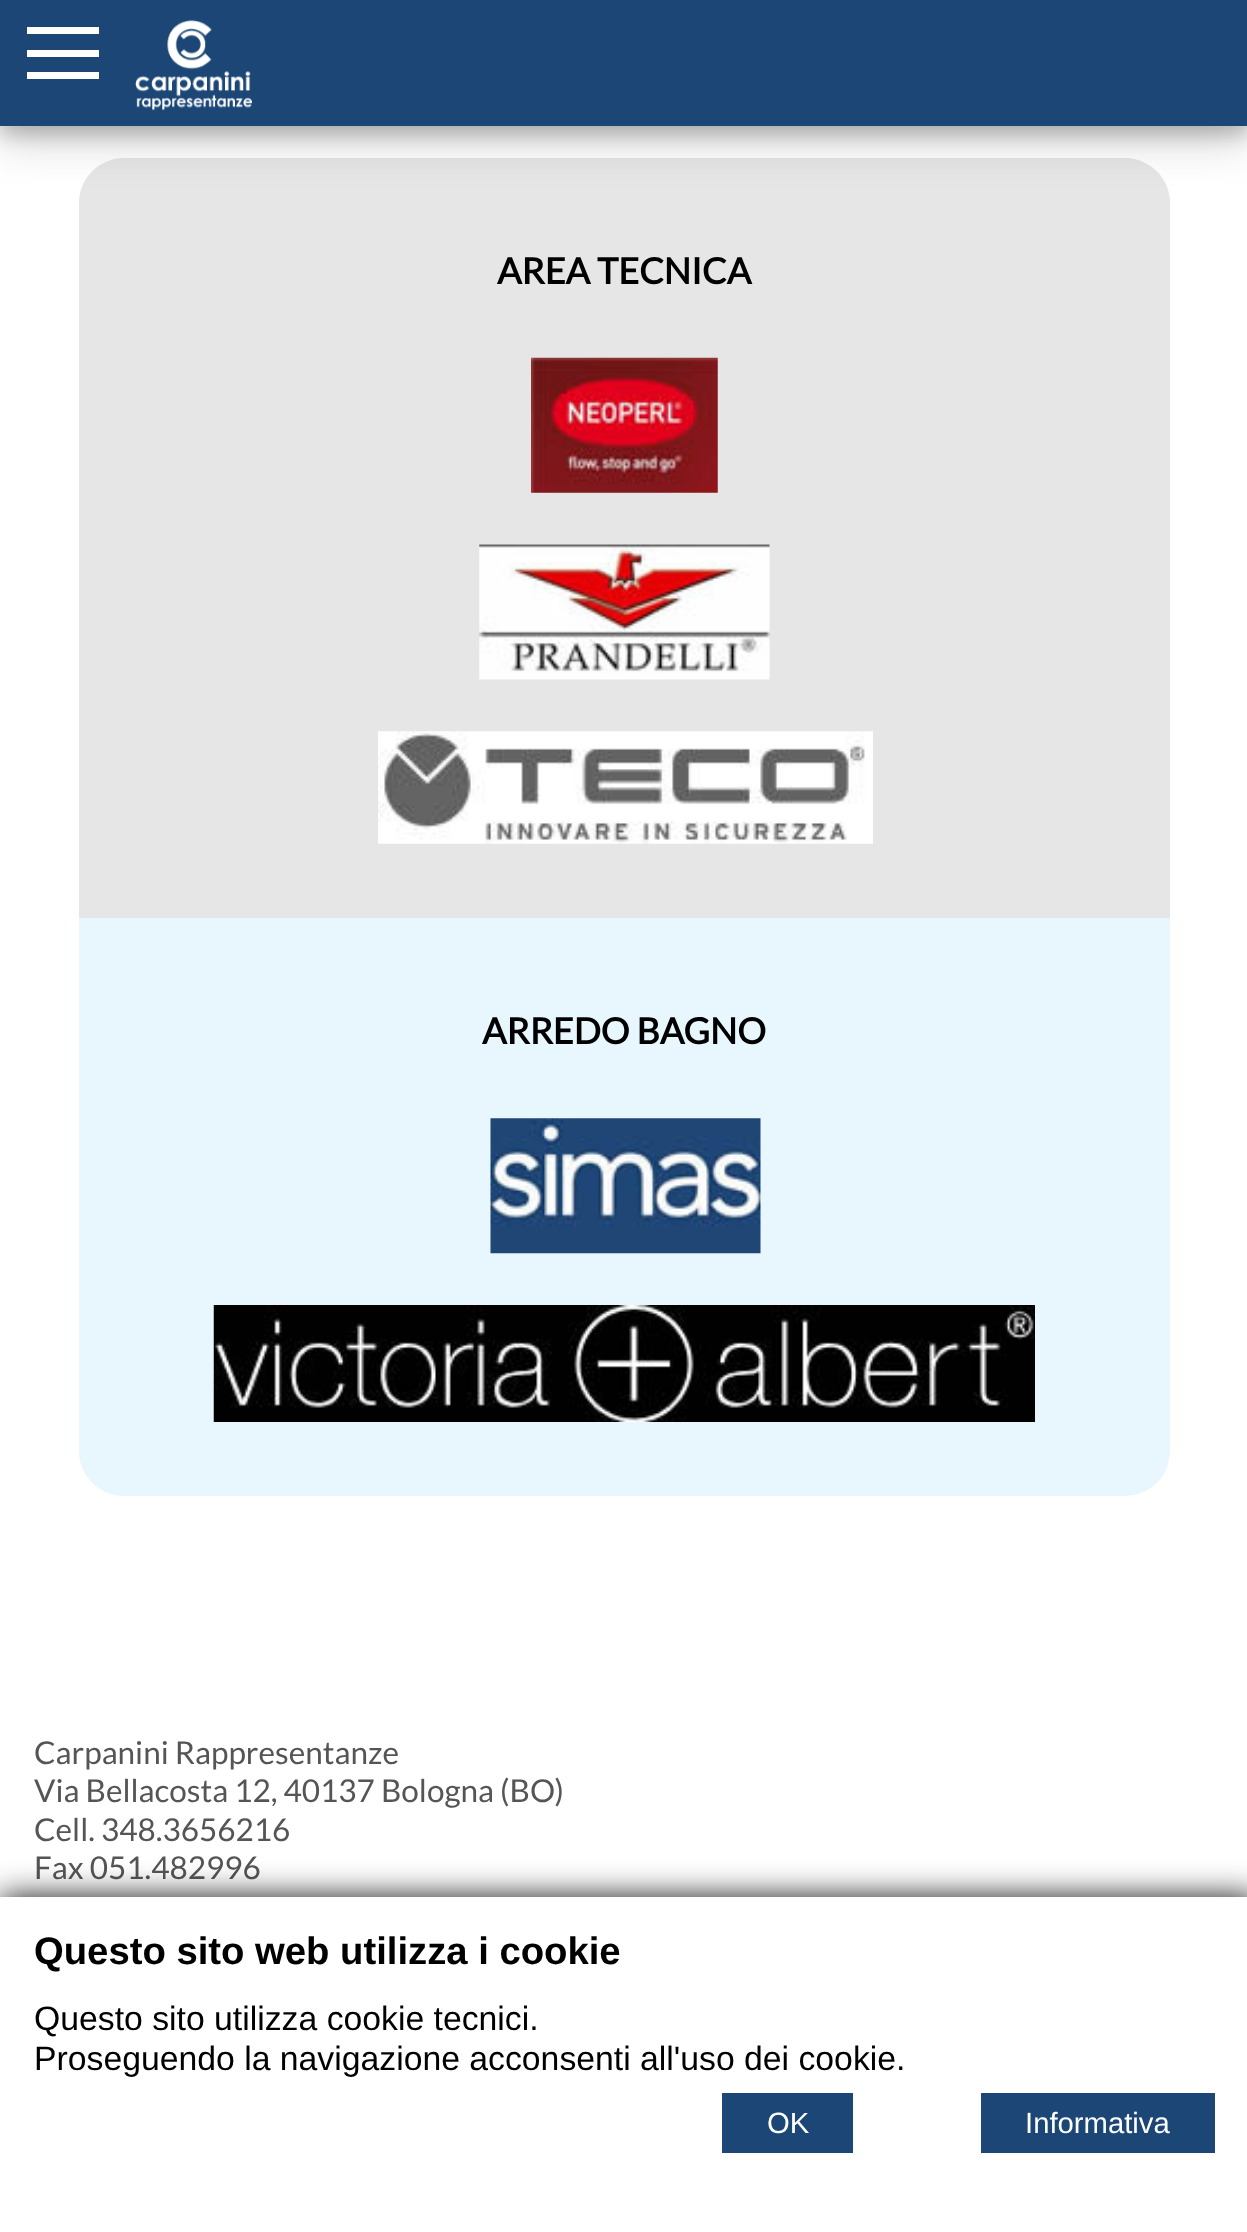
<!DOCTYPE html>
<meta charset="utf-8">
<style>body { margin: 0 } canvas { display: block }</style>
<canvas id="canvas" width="1247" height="2232"></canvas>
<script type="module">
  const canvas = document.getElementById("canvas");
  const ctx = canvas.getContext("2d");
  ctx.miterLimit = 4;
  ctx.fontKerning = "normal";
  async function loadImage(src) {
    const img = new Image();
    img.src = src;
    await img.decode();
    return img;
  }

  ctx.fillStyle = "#ffffff";
  ctx.fillRect(0, 0, 1247, 2232);
  ctx.fillStyle = "#e7e6e7";
  ctx.beginPath();
  ctx.roundRect(79, 158, 1091, 760, [45, 45, 0, 0]);
  ctx.fill();
  ctx.fillStyle = "rgba(0, 0, 0, 0.19)";
  ctx.filter = "blur(22.5px)";
  ctx.beginPath();
  ctx.rect(0, 14, 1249, 126);
  ctx.fill();
  ctx.filter = "none";
  ctx.fillStyle = "rgba(0, 0, 0, 0.2)";
  ctx.filter = "blur(9px)";
  ctx.beginPath();
  ctx.rect(0, 9, 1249, 126);
  ctx.fill();
  ctx.filter = "none";
  ctx.fillStyle = "#1c4675";
  ctx.fillRect(0, 0, 1247, 126);
  ctx.fillStyle = "#ffffff";
  ctx.fillRect(27, 50, 72, 7);
  ctx.fillRect(27, 27, 72, 7);
  ctx.fillRect(27, 72, 72, 7);
  ctx.drawImage(await loadImage("img1.png"), 135, 20, 117, 91);
  ctx.font = "bold 36px Lato";
  ctx.fillStyle = "#000000";
  ctx.fillText("AREA TECNICA", 497, 284);
  ctx.drawImage(await loadImage("img2.png"), 531, 357, 187, 136);
  ctx.drawImage(await loadImage("img3.png"), 479, 544, 291, 136);
  ctx.drawImage(await loadImage("img4.png"), 378, 731, 495, 113);
  ctx.fillStyle = "#e8f6fe";
  ctx.beginPath();
  ctx.roundRect(79, 918, 1091, 578, [0, 0, 45, 45]);
  ctx.fill();
  ctx.fillStyle = "#000000";
  ctx.fillText("ARREDO BAGNO", 482, 1044);
  ctx.drawImage(await loadImage("img5.png"), 490, 1118, 271, 136);
  ctx.drawImage(await loadImage("img6.png"), 213, 1305, 822, 117);
  ctx.font = "31.5px Lato";
  ctx.fillStyle = "#555555";
  ctx.fillText("Carpanini Rappresentanze", 34, 1764);
  ctx.fillText("Via Bellacosta 12, 40137 Bologna (BO)", 34, 1802);
  ctx.fillText("Cell. 348.3656216", 34, 1841);
  ctx.fillText("Fax 051.482996", 34, 1879);
  ctx.fillStyle = "#121212";
  ctx.filter = "blur(16px)";
  ctx.beginPath();
  ctx.rect(0, 1897, 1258, 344);
  ctx.fill();
  ctx.filter = "none";
  ctx.fillStyle = "#ffffff";
  ctx.fillRect(0, 1897, 1247, 335);
  ctx.font = "bold 38.25px Liberation Sans";
  ctx.fillStyle = "#000000";
  ctx.fillText("Questo sito web utilizza i cookie", 34, 1964);
  ctx.font = "33.75px Liberation Sans";
  ctx.fillText("Questo sito utilizza cookie tecnici.", 34, 2030);
  ctx.fillText("Proseguendo la navigazione acconsenti all'uso dei cookie.", 34, 2070);
  ctx.fillStyle = "#1c4675";
  ctx.fillRect(722, 2093, 131, 60);
  ctx.font = "29.25px Liberation Sans";
  ctx.fillStyle = "#ffffff";
  ctx.fillText("OK", 767, 2133);
  ctx.fillStyle = "#1c4675";
  ctx.fillRect(981, 2093, 234, 60);
  ctx.fillStyle = "#ffffff";
  ctx.fillText("Informativa", 1025, 2133);
</script>
